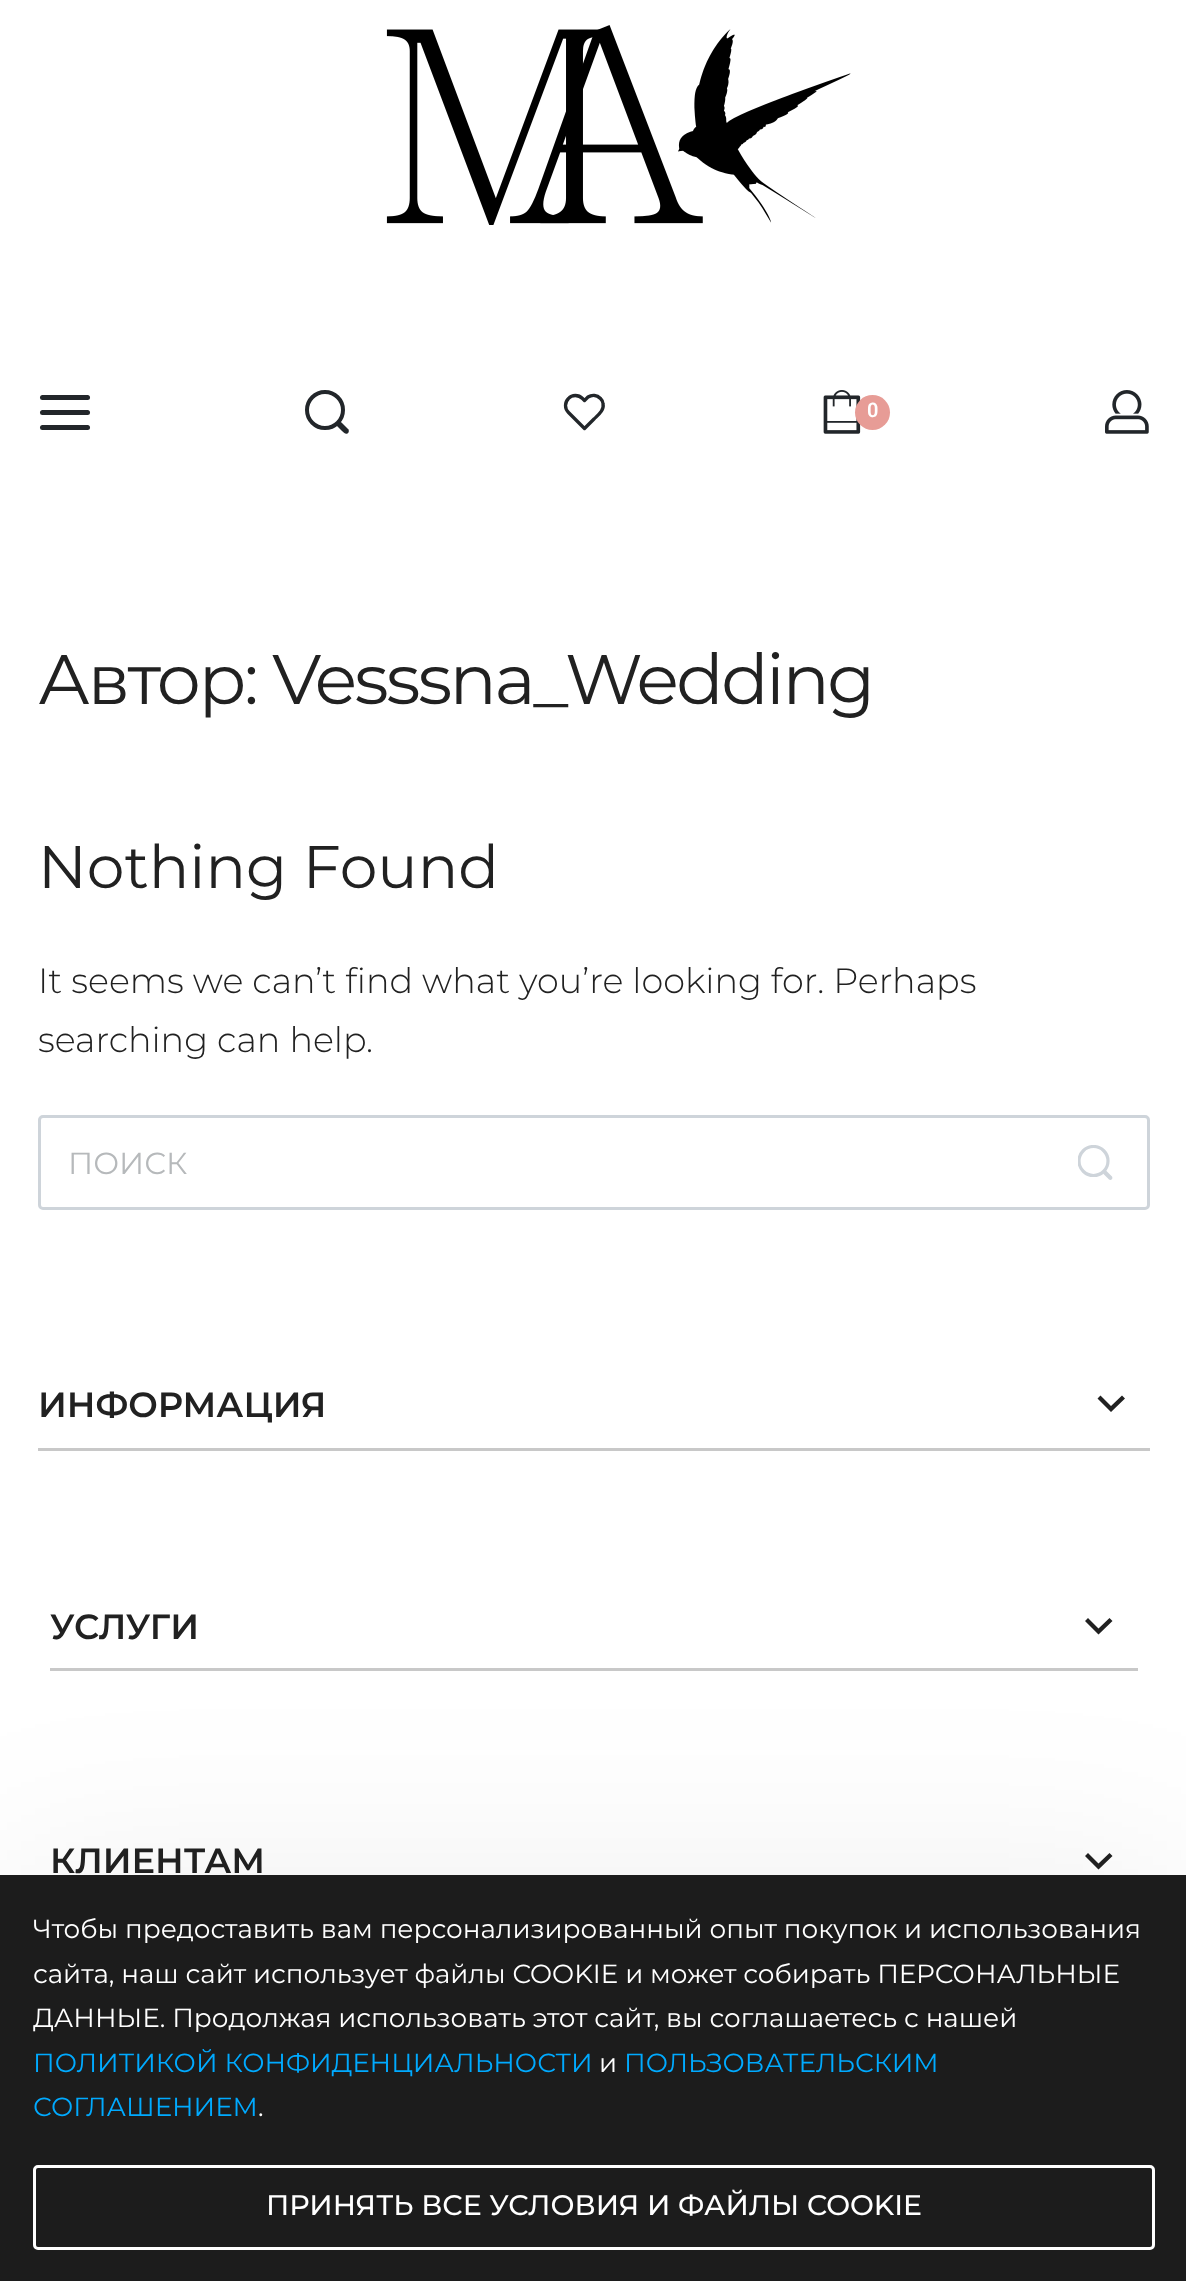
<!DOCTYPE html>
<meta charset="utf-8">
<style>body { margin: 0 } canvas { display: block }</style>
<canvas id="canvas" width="1186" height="2281"></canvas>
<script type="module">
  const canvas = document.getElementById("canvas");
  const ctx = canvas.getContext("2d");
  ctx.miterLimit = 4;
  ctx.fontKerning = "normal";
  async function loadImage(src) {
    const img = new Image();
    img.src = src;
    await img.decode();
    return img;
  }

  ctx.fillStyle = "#ffffff";
  ctx.fillRect(0, 0, 1186, 2281);
  ctx.drawImage(await loadImage("img1.png"), 386, 25, 465, 200);
  ctx.fillStyle = "#22262a";
  ctx.beginPath();
  ctx.roundRect(40, 395, 50, 5, 2.5);
  ctx.fill();
  ctx.beginPath();
  ctx.roundRect(40, 410, 50, 5, 2.5);
  ctx.fill();
  ctx.beginPath();
  ctx.roundRect(40, 425, 50, 5, 2.5);
  ctx.fill();
  ctx.beginPath();
  ctx.arc(325, 410, 18, 0, Math.PI * 2);
  ctx.strokeStyle = "#22262a";
  ctx.lineWidth = 4;
  ctx.stroke();
  ctx.beginPath();
  ctx.moveTo(341.5, 422.5);
  ctx.lineTo(348.5, 429.5);
  ctx.bezierCurveTo(349, 430.5, 349, 431.5, 348.5, 432.5);
  ctx.bezierCurveTo(346.5, 435.5, 343.5, 432.5, 342, 431);
  ctx.lineTo(337.5, 426.5);
  ctx.bezierCurveTo(335, 424, 339, 420, 341.5, 422.5);
  ctx.closePath();
  ctx.fill();
  ctx.beginPath();
  ctx.moveTo(600.5, 398.5);
  ctx.bezierCurveTo(597, 395, 592, 394.5, 588, 397);
  ctx.lineTo(584.5, 400.5);
  ctx.lineTo(582.5, 398.5);
  ctx.bezierCurveTo(578.5, 394.5, 572, 394.5, 568.5, 398.5);
  ctx.bezierCurveTo(564.5, 402.5, 564.5, 408.5, 568.5, 412.5);
  ctx.lineTo(584.5, 428.5);
  ctx.lineTo(594, 419);
  ctx.bezierCurveTo(598, 415, 604.5, 410.5, 603, 403.5);
  ctx.bezierCurveTo(603, 401.5, 602, 400, 600.5, 398.5);
  ctx.closePath();
  ctx.lineWidth = 3.3;
  ctx.lineCap = "round";
  ctx.lineJoin = "round";
  ctx.stroke();
  ctx.drawImage(await loadImage("img2.png"), 823, 390, 38, 44);
  ctx.fillStyle = "#e79c96";
  ctx.beginPath();
  ctx.arc(872.5, 412.5, 17.5, 0, Math.PI * 2);
  ctx.fill();
  ctx.font = "600 20px Roboto";
  ctx.fillStyle = "#ffffff";
  ctx.fillText("0", 867, 417);
  ctx.drawImage(await loadImage("img3.png"), 1105, 390, 44, 44);
  ctx.letterSpacing = "-2.5px";
  ctx.font = "70px Montserrat";
  ctx.fillStyle = "#212121";
  ctx.fillText("Автор: Vesssna_Wedding", 38, 704);
  ctx.letterSpacing = "0px";
  ctx.font = "60px Montserrat";
  ctx.fillText("Nothing Found", 38, 888);
  ctx.font = "300 35px Montserrat";
  ctx.fillText("It seems we can’t find what you’re looking for. Perhaps", 38, 993);
  ctx.fillText("searching can help.", 38, 1052);
  ctx.beginPath();
  ctx.roundRect(39.5, 1116.5, 1109, 92, 3.5);
  ctx.strokeStyle = "#ced4da";
  ctx.lineWidth = 3;
  ctx.lineJoin = "miter";
  ctx.stroke();
  ctx.font = "30.5px Montserrat";
  ctx.fillStyle = "#b6b9bb";
  ctx.fillText("ПОИСК", 68, 1174);
  ctx.save();
  ctx.beginPath();
  ctx.rect(1078, 1145, 35, 35);
  ctx.clip();
  ctx.beginPath();
  ctx.arc(1093.5, 1161, 14.5, 0, Math.PI * 2);
  ctx.lineWidth = 3.2;
  ctx.stroke();
  ctx.restore();
  ctx.fillStyle = "#ced4da";
  ctx.beginPath();
  ctx.moveTo(1106.5, 1171);
  ctx.lineTo(1112, 1176.5);
  ctx.bezierCurveTo(1112.5, 1177.5, 1112.5, 1178.5, 1112, 1179);
  ctx.bezierCurveTo(1110.5, 1181.5, 1108.5, 1179, 1107, 1177.5);
  ctx.lineTo(1103.5, 1174);
  ctx.bezierCurveTo(1101.5, 1172, 1104.5, 1169, 1106.5, 1171);
  ctx.closePath();
  ctx.fill();
  ctx.font = "600 35px Montserrat";
  ctx.fillStyle = "#212121";
  ctx.fillText("ИНФОРМАЦИЯ", 38, 1417);
  ctx.beginPath();
  ctx.moveTo(1097.5, 1398.5);
  ctx.lineTo(1111, 1412);
  ctx.lineTo(1125, 1398.5);
  ctx.lineTo(1122, 1395.5);
  ctx.lineTo(1111, 1406);
  ctx.lineTo(1100.5, 1395.5);
  ctx.closePath();
  ctx.fill("evenodd");
  ctx.fillStyle = "#c8c8c8";
  ctx.fillRect(38, 1448, 1112, 3);
  ctx.fillStyle = "#212121";
  ctx.fillText("УСЛУГИ", 50, 1639);
  ctx.beginPath();
  ctx.moveTo(1085, 1621);
  ctx.lineTo(1098.5, 1634.5);
  ctx.lineTo(1112.5, 1621);
  ctx.lineTo(1109.5, 1618);
  ctx.lineTo(1098.5, 1628.5);
  ctx.lineTo(1088, 1618);
  ctx.closePath();
  ctx.fill("evenodd");
  ctx.fillStyle = "#c8c8c8";
  ctx.fillRect(50, 1668, 1088, 3);
  ctx.fillStyle = "#212121";
  ctx.fillText("КЛИЕНТАМ", 50, 1873);
  ctx.beginPath();
  ctx.moveTo(1085, 1856);
  ctx.lineTo(1098.5, 1869.5);
  ctx.lineTo(1112.5, 1856);
  ctx.lineTo(1109.5, 1853);
  ctx.lineTo(1098.5, 1863.5);
  ctx.lineTo(1088, 1853);
  ctx.closePath();
  ctx.fill("evenodd");
  ctx.fillStyle = "rgba(0, 0, 0, 0.07)";
  ctx.filter = "blur(100px)";
  ctx.beginPath();
  ctx.rect(0, 1888, 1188, 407);
  ctx.fill();
  ctx.filter = "none";
  ctx.fillStyle = "#1c1c1c";
  ctx.fillRect(0, 1875, 1186, 406);
  ctx.font = "26.25px Montserrat";
  ctx.fillStyle = "#ffffff";
  ctx.fillText("Чтобы предоставить вам персонализированный опыт покупок и использования", 33, 1938);
  ctx.fillText("сайта, наш сайт использует файлы COOKIE и может собирать ПЕРСОНАЛЬНЫЕ", 33, 1983);
  ctx.fillText("ДАННЫЕ. Продолжая использовать этот сайт, вы соглашаетесь с нашей", 33, 2027);
  ctx.fillStyle = "#00aaff";
  ctx.fillText("ПОЛИТИКОЙ КОНФИДЕНЦИАЛЬНОСТИ", 33, 2072);
  ctx.fillStyle = "#ffffff";
  ctx.fillText("и", 599, 2072);
  ctx.fillStyle = "#00aaff";
  ctx.fillText("ПОЛЬЗОВАТЕЛЬСКИМ", 624, 2072);
  ctx.fillText("СОГЛАШЕНИЕМ", 33, 2116);
  ctx.fillStyle = "#ffffff";
  ctx.fillText(".", 258, 2116);
  ctx.beginPath();
  ctx.roundRect(34.5, 2166.5, 1119, 82, 3.5);
  ctx.strokeStyle = "#ffffff";
  ctx.stroke();
  ctx.font = "500 28.4px Montserrat";
  ctx.fillText("ПРИНЯТЬ ВСЕ УСЛОВИЯ И ФАЙЛЫ COOKIE", 266, 2215);
</script>
